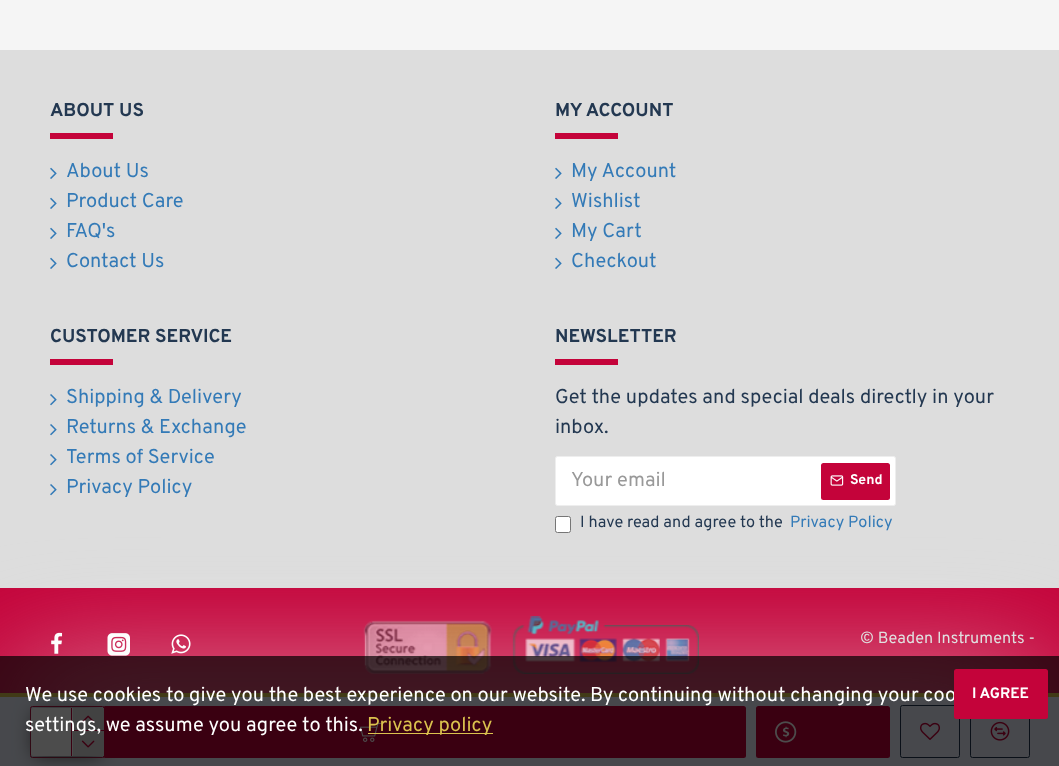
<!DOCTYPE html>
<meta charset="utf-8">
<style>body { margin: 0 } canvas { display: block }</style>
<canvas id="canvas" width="1059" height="766"></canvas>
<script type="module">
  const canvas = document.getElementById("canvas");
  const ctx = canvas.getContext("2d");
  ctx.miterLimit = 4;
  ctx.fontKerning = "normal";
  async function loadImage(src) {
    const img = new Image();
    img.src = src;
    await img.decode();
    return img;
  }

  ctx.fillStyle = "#f5f5f5";
  ctx.fillRect(0, 0, 1059, 766);
  ctx.fillStyle = "#dddddd";
  ctx.fillRect(0, 50, 1059, 538);
  ctx.font = "bold 18.75px Overpass";
  ctx.fillStyle = "#233851";
  ctx.fillText("ABOUT US", 50, 116);
  ctx.fillStyle = "#c4033a";
  ctx.fillRect(50, 133, 63, 6);
  ctx.drawImage(await loadImage("img1.png"), 50, 167, 7, 12);
  ctx.font = "20px Overpass";
  ctx.fillStyle = "#337ab7";
  ctx.fillText("About Us", 66, 177);
  ctx.drawImage(await loadImage("img1.png"), 50, 197, 7, 12);
  ctx.fillText("Product Care", 66, 207);
  ctx.drawImage(await loadImage("img1.png"), 50, 227, 7, 12);
  ctx.fillText("FAQ's", 66, 237);
  ctx.drawImage(await loadImage("img1.png"), 50, 257, 7, 12);
  ctx.fillText("Contact Us", 66, 267);
  ctx.font = "bold 18.75px Overpass";
  ctx.fillStyle = "#233851";
  ctx.fillText("MY ACCOUNT", 555, 116);
  ctx.fillStyle = "#c4033a";
  ctx.fillRect(555, 133, 63, 6);
  ctx.drawImage(await loadImage("img1.png"), 555, 167, 7, 12);
  ctx.font = "20px Overpass";
  ctx.fillStyle = "#337ab7";
  ctx.fillText("My Account", 571, 177);
  ctx.drawImage(await loadImage("img1.png"), 555, 197, 7, 12);
  ctx.fillText("Wishlist", 571, 207);
  ctx.drawImage(await loadImage("img1.png"), 555, 227, 7, 12);
  ctx.fillText("My Cart", 571, 237);
  ctx.drawImage(await loadImage("img1.png"), 555, 257, 7, 12);
  ctx.fillText("Checkout", 571, 267);
  ctx.font = "bold 18.75px Overpass";
  ctx.fillStyle = "#233851";
  ctx.fillText("CUSTOMER SERVICE", 50, 342);
  ctx.fillStyle = "#c4033a";
  ctx.fillRect(50, 359, 63, 6);
  ctx.drawImage(await loadImage("img2.png"), 50, 394, 7, 12);
  ctx.font = "20px Overpass";
  ctx.fillStyle = "#337ab7";
  ctx.fillText("Shipping & Delivery", 66, 403);
  ctx.drawImage(await loadImage("img2.png"), 50, 424, 7, 12);
  ctx.fillText("Returns & Exchange", 66, 433);
  ctx.drawImage(await loadImage("img2.png"), 50, 454, 7, 12);
  ctx.fillText("Terms of Service", 66, 463);
  ctx.drawImage(await loadImage("img2.png"), 50, 484, 7, 12);
  ctx.fillText("Privacy Policy", 66, 493);
  ctx.font = "bold 18.75px Overpass";
  ctx.fillStyle = "#233851";
  ctx.fillText("NEWSLETTER", 555, 342);
  ctx.fillStyle = "#c4033a";
  ctx.fillRect(555, 359, 63, 6);
  ctx.font = "20px Overpass";
  ctx.fillStyle = "#233851";
  ctx.fillText("Get the updates and special deals directly in your", 555, 403);
  ctx.fillText("inbox.", 555, 433);
  ctx.fillStyle = "#ffffff";
  ctx.beginPath();
  ctx.roundRect(555.5, 456.5, 340, 49, 2);
  ctx.fill();
  ctx.strokeStyle = "#eeeeee";
  ctx.stroke();
  ctx.fillStyle = "#999999";
  ctx.fillText("Your email", 571, 486);
  ctx.fillStyle = "#c4033a";
  ctx.beginPath();
  ctx.roundRect(821, 463, 69, 37, 2.5);
  ctx.fill();
  ctx.drawImage(await loadImage("img3.png"), 830, 475, 14, 11);
  ctx.font = "bold 14px Overpass";
  ctx.fillStyle = "#ffffff";
  ctx.fillText("Send", 850, 484);
  ctx.beginPath();
  ctx.roundRect(555.5, 516.5, 15, 16, 2);
  ctx.fill();
  ctx.strokeStyle = "#767676";
  ctx.stroke();
  ctx.font = "16.25px Overpass";
  ctx.fillStyle = "#233851";
  ctx.fillText("I have read and agree to the", 580, 527);
  ctx.fillStyle = "#337ab7";
  ctx.fillText("Privacy Policy", 790, 527);
  ctx.fillStyle = "#c4033a";
  ctx.fillRect(0, 588, 1059, 105);
  ctx.drawImage(await loadImage("img4.png"), 51, 632, 12, 22);
  ctx.drawImage(await loadImage("img5.png"), 107, 633, 23, 23);
  ctx.drawImage(await loadImage("img6.png"), 171, 634, 20, 20);
  ctx.drawImage(await loadImage("img7.png"), 363, 616, 336, 58);
  ctx.fillStyle = "#dddddd";
  ctx.fillText("© Beaden Instruments -", 860, 643);
  ctx.fillStyle = "#f5f5f5";
  ctx.filter = "blur(62.5px)";
  ctx.beginPath();
  ctx.rect(13, 686, 1035, 49);
  ctx.fill();
  ctx.filter = "none";
  ctx.fillStyle = "#edf2fe";
  ctx.fillRect(0, 697, 1059, 69);
  ctx.fillStyle = "#dbc24e";
  ctx.fillRect(0, 693, 1059, 4);
  ctx.beginPath();
  ctx.roundRect(30.5, 706.5, 74, 51, 2);
  ctx.strokeStyle = "#c4033a";
  ctx.stroke();
  ctx.fillStyle = "#555555";
  ctx.filter = "blur(9.5px)";
  ctx.beginPath();
  ctx.rect(34, 713, 67, 43);
  ctx.fill();
  ctx.filter = "none";
  ctx.fillStyle = "#ffffff";
  ctx.beginPath();
  ctx.roundRect(31, 708, 73, 48, 2.5);
  ctx.fill();
  ctx.fillStyle = "#c4033a";
  ctx.fillRect(71, 708, 1, 48);
  ctx.beginPath();
  ctx.roundRect(103, 706, 643, 52, 2.5);
  ctx.fill();
  ctx.fillStyle = "#dddddd";
  ctx.fillRect(73, 708, 31, 22);
  ctx.fillStyle = "#c4033a";
  ctx.fillRect(73, 730, 31, 1);
  ctx.drawImage(await loadImage("img8.png"), 81, 715, 14, 8);
  ctx.fillStyle = "#dddddd";
  ctx.fillRect(73, 731, 31, 25);
  ctx.drawImage(await loadImage("img9.png"), 81, 740, 14, 8);
  ctx.drawImage(await loadImage("img10.png"), 360, 722, 22, 20);
  ctx.fillStyle = "#c4033a";
  ctx.beginPath();
  ctx.roundRect(756, 706, 134, 52, 2.5);
  ctx.fill();
  ctx.drawImage(await loadImage("img11.png"), 775, 721, 22, 22);
  ctx.beginPath();
  ctx.roundRect(900.5, 705.5, 59, 52, 2);
  ctx.strokeStyle = "#233851";
  ctx.stroke();
  ctx.drawImage(await loadImage("img12.png"), 920, 722, 20, 18);
  ctx.beginPath();
  ctx.roundRect(970.5, 705.5, 59, 52, 2);
  ctx.stroke();
  ctx.drawImage(await loadImage("img13.png"), 990, 721, 20, 20);
  ctx.fillStyle = "rgba(0, 0, 0, 0.7)";
  ctx.fillRect(0, 656, 1059, 110);
  ctx.font = "20px Overpass";
  ctx.fillStyle = "#ffffff";
  ctx.fillText("We use cookies to give you the best experience on our website. By continuing without changing your coo", 25, 701);
  ctx.fillText("settings, we assume you agree to this.", 25, 731);
  ctx.fillStyle = "#dbc24e";
  ctx.fillRect(368, 733, 125, 1);
  ctx.fillText("Privacy policy", 367, 731);
  ctx.fillStyle = "#c4033a";
  ctx.beginPath();
  ctx.roundRect(954, 669, 94, 50, 2.5);
  ctx.fill();
  ctx.font = "bold 15px Overpass";
  ctx.fillStyle = "#ffffff";
  ctx.fillText("I AGREE", 972, 698);
</script>
